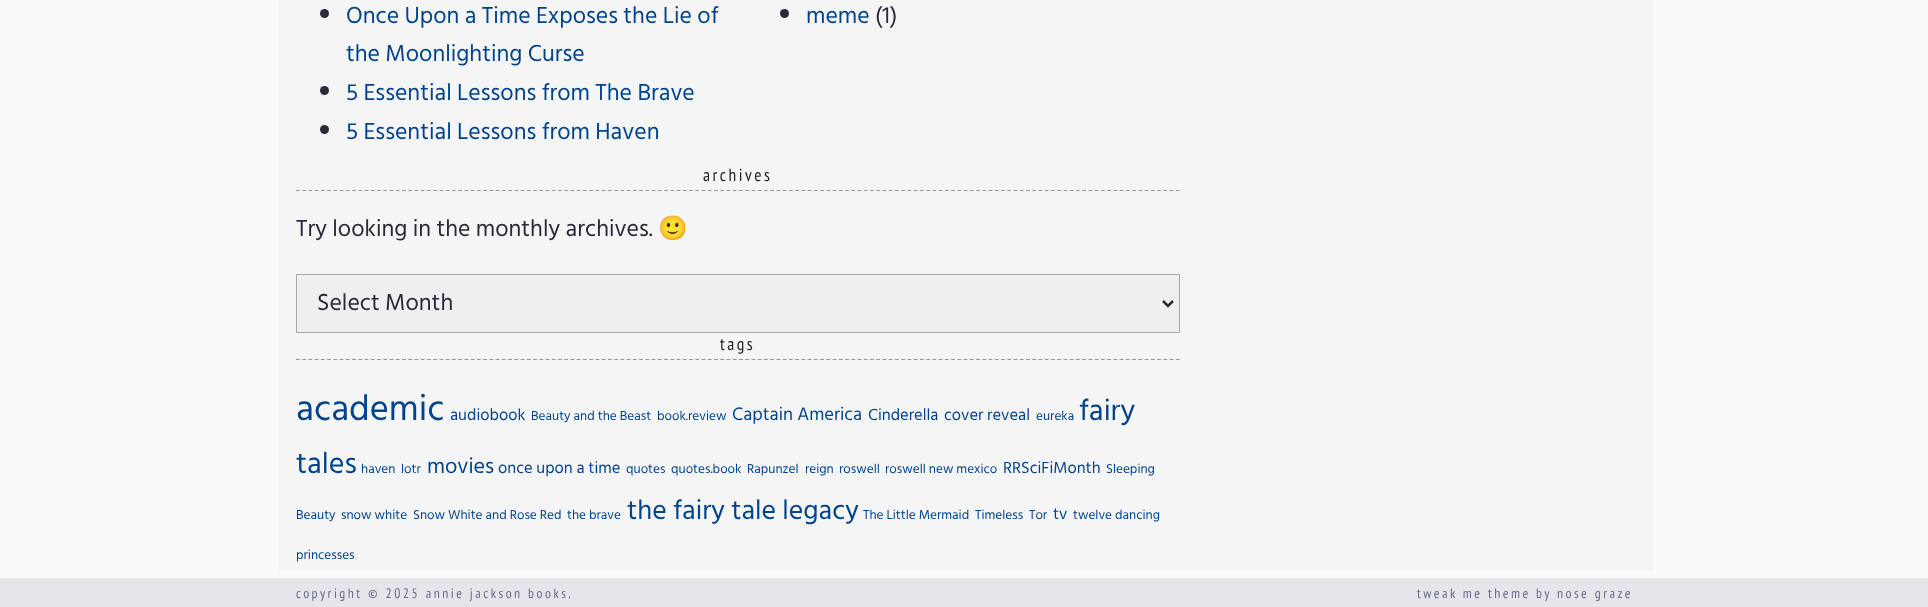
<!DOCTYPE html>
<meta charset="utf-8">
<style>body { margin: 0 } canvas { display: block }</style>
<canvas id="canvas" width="1928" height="607"></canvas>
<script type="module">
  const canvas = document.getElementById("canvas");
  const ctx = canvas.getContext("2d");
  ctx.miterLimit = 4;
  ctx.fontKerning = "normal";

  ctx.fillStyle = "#fafafa";
  ctx.fillRect(0, 0, 1928, 607);
  ctx.fillStyle = "#f5f5f5";
  ctx.fillRect(278, 0, 1375, 571);
  ctx.fillStyle = "#29293a";
  ctx.beginPath();
  ctx.arc(324.5, 13.5, 4.5, 0, Math.PI * 2);
  ctx.fill();
  ctx.font = "23.75px Hind Siliguri";
  ctx.fillStyle = "#00448e";
  ctx.fillText("Once Upon a Time Exposes the Lie of", 346, 23);
  ctx.fillText("the Moonlighting Curse", 346, 61);
  ctx.fillStyle = "#29293a";
  ctx.beginPath();
  ctx.arc(324.5, 90.5, 4.5, 0, Math.PI * 2);
  ctx.fill();
  ctx.fillStyle = "#00448e";
  ctx.fillText("5 Essential Lessons from The Brave", 346, 100);
  ctx.fillStyle = "#29293a";
  ctx.beginPath();
  ctx.arc(324.5, 129.5, 4.5, 0, Math.PI * 2);
  ctx.fill();
  ctx.fillStyle = "#00448e";
  ctx.fillText("5 Essential Lessons from Haven", 346, 139);
  ctx.fillStyle = "#29293a";
  ctx.beginPath();
  ctx.arc(784.5, 13.5, 4.5, 0, Math.PI * 2);
  ctx.fill();
  ctx.fillStyle = "#00448e";
  ctx.fillText("meme", 806, 23);
  ctx.fillStyle = "#29293a";
  ctx.fillText("(1)", 875, 23);
  ctx.beginPath();
  ctx.moveTo(296, 190.5);
  ctx.lineTo(1180, 190.5);
  ctx.strokeStyle = "#949494";
  ctx.lineWidth = 1.2;
  ctx.setLineDash([3.75, 2.49]);
  ctx.stroke();
  ctx.letterSpacing = "2.5px";
  ctx.font = "17.5px PT Sans Narrow";
  ctx.fillStyle = "#222222";
  ctx.fillText("archives", 703, 181);
  ctx.letterSpacing = "0px";
  ctx.font = "23.75px Hind Siliguri";
  ctx.fillStyle = "#29293a";
  ctx.fillText("Try looking in the monthly archives.", 296, 236);
  ctx.font = "23.75px Noto Color Emoji";
  ctx.fillText("🙂", 658, 236);
  ctx.fillStyle = "#efefef";
  ctx.beginPath();
  ctx.rect(296.5, 274.5, 883, 58);
  ctx.fill();
  ctx.strokeStyle = "#a9a9a9";
  ctx.lineWidth = 1;
  ctx.setLineDash([]);
  ctx.stroke();
  ctx.beginPath();
  ctx.moveTo(1163, 301);
  ctx.lineTo(1168, 306);
  ctx.lineTo(1173, 301);
  ctx.strokeStyle = "#29293a";
  ctx.lineWidth = 2.5;
  ctx.stroke();
  ctx.font = "23.75px Hind Siliguri";
  ctx.fillStyle = "#29293a";
  ctx.fillText("Select Month", 317, 310);
  ctx.beginPath();
  ctx.moveTo(296, 359.5);
  ctx.lineTo(1180, 359.5);
  ctx.strokeStyle = "#949494";
  ctx.lineWidth = 1.2;
  ctx.setLineDash([3.75, 2.49]);
  ctx.stroke();
  ctx.letterSpacing = "2.5px";
  ctx.font = "17.5px PT Sans Narrow";
  ctx.fillStyle = "#222222";
  ctx.fillText("tags", 720, 350);
  ctx.letterSpacing = "0px";
  ctx.font = "36.5px Hind Siliguri";
  ctx.fillStyle = "#00448e";
  ctx.fillText("academic", 296, 420);
  ctx.font = "16.5px Hind Siliguri";
  ctx.fillText("audiobook", 450, 420);
  ctx.font = "13.25px Hind Siliguri";
  ctx.fillText("Beauty and the Beast", 531, 420);
  ctx.fillText("book.review", 657, 420);
  ctx.font = "18.5px Hind Siliguri";
  ctx.fillText("Captain America", 732, 420);
  ctx.font = "16.5px Hind Siliguri";
  ctx.fillText("Cinderella", 868, 420);
  ctx.fillText("cover reveal", 944, 420);
  ctx.font = "13.25px Hind Siliguri";
  ctx.fillText("eureka", 1036, 420);
  ctx.font = "30px Hind Siliguri";
  ctx.fillText("fairy", 1079, 420);
  ctx.fillText("tales", 296, 473);
  ctx.font = "13.25px Hind Siliguri";
  ctx.fillText("haven", 361, 473);
  ctx.fillText("lotr", 401, 473);
  ctx.font = "22px Hind Siliguri";
  ctx.fillText("movies", 427, 473);
  ctx.font = "16.5px Hind Siliguri";
  ctx.fillText("once upon a time", 498, 473);
  ctx.font = "13.25px Hind Siliguri";
  ctx.fillText("quotes", 626, 473);
  ctx.fillText("quotes.book", 671, 473);
  ctx.fillText("Rapunzel", 747, 473);
  ctx.fillText("reign", 805, 473);
  ctx.fillText("roswell", 839, 473);
  ctx.fillText("roswell new mexico", 885, 473);
  ctx.font = "16.5px Hind Siliguri";
  ctx.fillText("RRSciFiMonth", 1003, 473);
  ctx.font = "13.25px Hind Siliguri";
  ctx.fillText("Sleeping", 1106, 473);
  ctx.fillText("Beauty", 296, 519);
  ctx.fillText("snow white", 341, 519);
  ctx.fillText("Snow White and Rose Red", 413, 519);
  ctx.fillText("the brave", 567, 519);
  ctx.font = "27.75px Hind Siliguri";
  ctx.fillText("the fairy tale legacy", 627, 519);
  ctx.font = "13.25px Hind Siliguri";
  ctx.fillText("The Little Mermaid", 863, 519);
  ctx.fillText("Timeless", 975, 519);
  ctx.fillText("Tor", 1029, 519);
  ctx.font = "16.5px Hind Siliguri";
  ctx.fillText("tv", 1053, 519);
  ctx.font = "13.25px Hind Siliguri";
  ctx.fillText("twelve dancing", 1073, 519);
  ctx.fillText("princesses", 296, 559);
  ctx.fillStyle = "#e5e5ea";
  ctx.fillRect(0, 578, 1928, 29);
  ctx.letterSpacing = "2.5px";
  ctx.font = "13.75px PT Sans Narrow";
  ctx.fillStyle = "#686891";
  ctx.fillText("copyright © 2025 annie jackson books.", 296, 598);
  ctx.fillText("tweak me theme by nose graze", 1417, 598);
</script>
